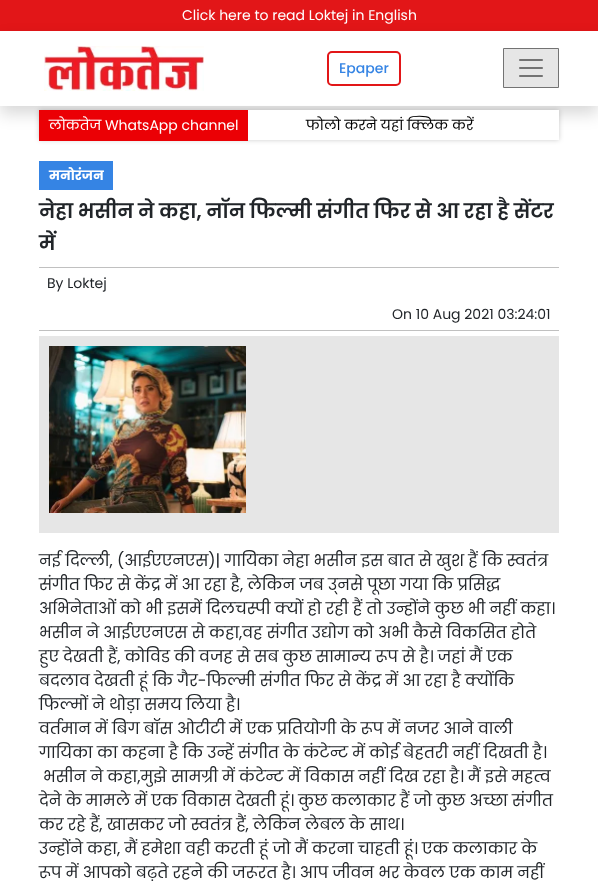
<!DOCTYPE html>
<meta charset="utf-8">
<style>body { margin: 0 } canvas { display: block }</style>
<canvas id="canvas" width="598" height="882"></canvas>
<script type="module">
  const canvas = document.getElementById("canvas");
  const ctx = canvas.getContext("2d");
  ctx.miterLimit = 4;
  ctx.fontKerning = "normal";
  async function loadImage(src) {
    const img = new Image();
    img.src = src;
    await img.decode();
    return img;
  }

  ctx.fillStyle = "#ffffff";
  ctx.fillRect(0, 0, 598, 882);
  ctx.fillStyle = "#e21618";
  ctx.fillRect(0, 0, 598, 31);
  ctx.save();
  ctx.beginPath();
  ctx.moveTo(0, 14);
  ctx.lineTo(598, 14);
  ctx.lineTo(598, 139);
  ctx.lineTo(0, 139);
  ctx.closePath();
  ctx.moveTo(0, 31);
  ctx.lineTo(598, 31);
  ctx.lineTo(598, 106);
  ctx.lineTo(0, 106);
  ctx.closePath();
  ctx.clip("evenodd");
  ctx.fillStyle = "rgba(0, 0, 0, 0.15)";
  ctx.filter = "blur(8px)";
  ctx.beginPath();
  ctx.rect(0, 39, 598, 75);
  ctx.fill();
  ctx.filter = "none";
  ctx.restore();
  ctx.font = "14px Poppins";
  ctx.fillStyle = "#ffffff";
  ctx.fillText("Click here to read Loktej in English", 182, 20);
  ctx.drawImage(await loadImage("img1.png"), 44, 46, 160, 45);
  ctx.beginPath();
  ctx.roundRect(328, 52, 72, 33, 4);
  ctx.strokeStyle = "#e21618";
  ctx.lineWidth = 2;
  ctx.stroke();
  ctx.font = "500 14px Poppins";
  ctx.fillStyle = "#3584e4";
  ctx.fillText("Epaper", 339, 73);
  ctx.fillStyle = "#e6e6e6";
  ctx.beginPath();
  ctx.rect(503.5, 48.5, 55, 39);
  ctx.fill();
  ctx.strokeStyle = "#737373";
  ctx.lineWidth = 1;
  ctx.stroke();
  ctx.drawImage(await loadImage("img2.png"), 519, 59, 24, 18);
  ctx.fillStyle = "rgba(0, 0, 0, 0.2)";
  ctx.filter = "blur(2.5px)";
  ctx.beginPath();
  ctx.rect(39, 110, 520, 30);
  ctx.fill();
  ctx.filter = "none";
  ctx.fillStyle = "#ffffff";
  ctx.fillRect(248, 110, 311, 30);
  ctx.fillStyle = "#eb0005";
  ctx.fillRect(39, 110, 209, 31);
  ctx.font = "14px Poppins";
  ctx.fillStyle = "#ffffff";
  ctx.fillText("लोकतेज WhatsApp channel", 49, 130);
  ctx.fillStyle = "#000000";
  ctx.fillText("फोलो करने यहां क्लिक करें", 306, 130);
  ctx.fillStyle = "#3584e4";
  ctx.fillRect(39, 161, 74, 29);
  ctx.font = "bold 13px Poppins";
  ctx.fillStyle = "#ffffff";
  ctx.fillText("मनोरंजन", 49, 180);
  ctx.font = "600 20px Poppins";
  ctx.fillStyle = "#212529";
  ctx.fillText("नेहा भसीन ने कहा, नॉन फिल्मी संगीत फिर से आ रहा है सेंटर", 39, 218);
  ctx.fillText("में", 39, 250);
  ctx.fillStyle = "#c0c0c0";
  ctx.fillRect(39, 267, 520, 1);
  ctx.fillRect(39, 330, 520, 1);
  ctx.font = "14px Poppins";
  ctx.fillStyle = "#212529";
  ctx.fillText("By Loktej", 47, 288);
  ctx.fillText("On 10 Aug 2021 03:24:01", 392, 319);
  ctx.fillStyle = "#e6e6e6";
  ctx.fillRect(39, 336, 520, 197);
  ctx.drawImage(await loadImage("img3.png"), 49, 346, 197, 167);
  ctx.font = "16px Poppins";
  ctx.fillStyle = "#212529";
  ctx.fillText("नई दिल्ली, (आईएएनएस)| गायिका नेहा भसीन इस बात से खुश हैं कि स्वतंत्र", 39, 566);
  ctx.fillText("संगीत फिर से केंद्र में आ रहा है, लेकिन जब उ्नसे पूछा गया कि प्रसिद्ध", 39, 590);
  ctx.fillText("अभिनेताओं को भी इसमें दिलचस्पी क्यों हो रही हैं तो उन्होंने कुछ भी नहीं कहा।", 39, 614);
  ctx.fillText("भसीन ने आईएएनएस से कहा,वह संगीत उद्योग को अभी कैसे विकसित होते", 39, 638);
  ctx.fillText("हुए देखती हैं, कोविड की वजह से सब कुछ सामान्य रूप से है। जहां मैं एक", 39, 662);
  ctx.fillText("बदलाव देखती हूं कि गैर-फिल्मी संगीत फिर से केंद्र में आ रहा है क्योंकि", 39, 686);
  ctx.fillText("फिल्मों ने थोड़ा समय लिया है।", 39, 710);
  ctx.fillText("वर्तमान में बिग बॉस ओटीटी में एक प्रतियोगी के रूप में नजर आने वाली", 39, 734);
  ctx.fillText("गायिका का कहना है कि उन्हें संगीत के कंटेन्ट में कोई बेहतरी नहीं दिखती है।", 39, 758);
  ctx.fillText("भसीन ने कहा,मुझे सामग्री में कंटेन्ट में विकास नहीं दिख रहा है। मैं इसे महत्व", 43, 782);
  ctx.fillText("देने के मामले में एक विकास देखती हूं। कुछ कलाकार हैं जो कुछ अच्छा संगीत", 39, 806);
  ctx.fillText("कर रहे हैं, खासकर जो स्वतंत्र हैं, लेकिन लेबल के साथ।", 39, 830);
  ctx.fillText("उन्होंने कहा, मैं हमेशा वही करती हूं जो मैं करना चाहती हूं। एक कलाकार के", 39, 854);
  ctx.fillText("रूप में आपको बढ़ते रहने की जरूरत है। आप जीवन भर केवल एक काम नहीं", 39, 878);
</script>
